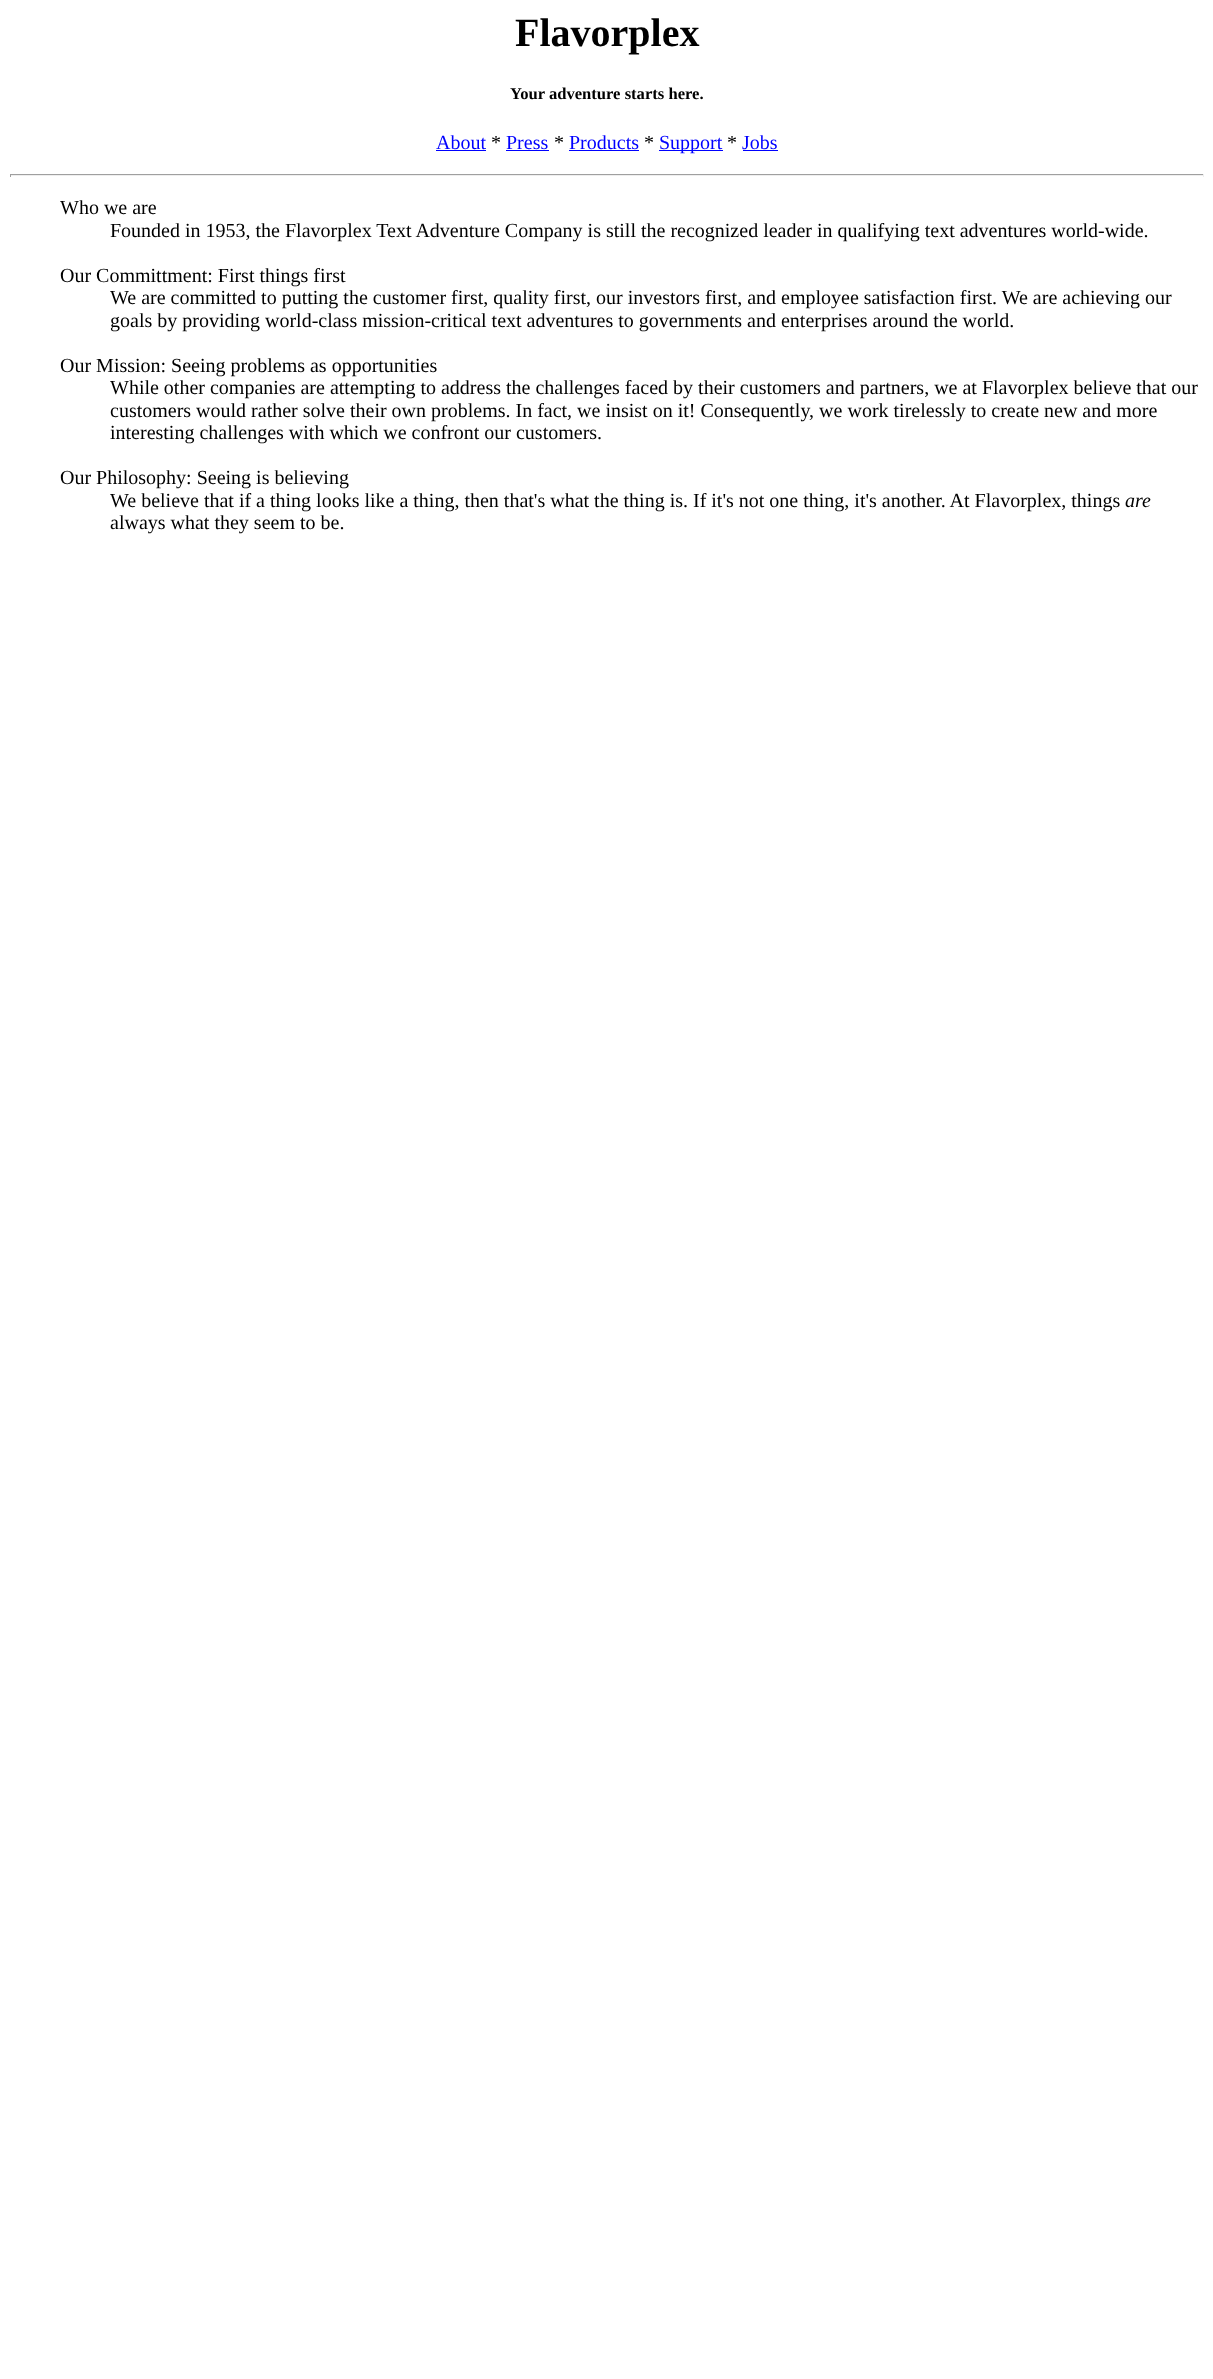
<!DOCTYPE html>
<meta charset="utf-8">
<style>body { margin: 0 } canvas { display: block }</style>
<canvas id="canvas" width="1213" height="2379"></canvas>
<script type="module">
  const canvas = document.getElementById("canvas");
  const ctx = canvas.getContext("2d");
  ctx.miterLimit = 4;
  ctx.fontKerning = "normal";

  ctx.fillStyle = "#ffffff";
  ctx.fillRect(0, 0, 1213, 2379);
  ctx.font = "bold 40px Liberation Serif";
  ctx.fillStyle = "#000000";
  ctx.fillText("Flavorplex", 515, 46);
  ctx.font = "bold 16.6px Liberation Serif";
  ctx.fillText("Your adventure starts here.", 510, 99);
  ctx.font = "20px Liberation Serif";
  ctx.fillStyle = "#0000ff";
  ctx.fillText("About", 436, 149);
  ctx.fillRect(436, 150, 50, 1);
  ctx.fillStyle = "#000000";
  ctx.fillText("*", 491, 149);
  ctx.fillStyle = "#0000ff";
  ctx.fillText("Press", 506, 149);
  ctx.fillRect(506, 150, 43, 1);
  ctx.fillStyle = "#000000";
  ctx.fillText("*", 554, 149);
  ctx.fillStyle = "#0000ff";
  ctx.fillText("Products", 569, 149);
  ctx.fillRect(569, 150, 70, 1);
  ctx.fillStyle = "#000000";
  ctx.fillText("*", 644, 149);
  ctx.fillStyle = "#0000ff";
  ctx.fillRect(659, 150, 64, 1);
  ctx.fillText("Support", 659, 149);
  ctx.fillStyle = "#000000";
  ctx.fillText("*", 727, 149);
  ctx.fillStyle = "#0000ff";
  ctx.fillText("Jobs", 742, 149);
  ctx.fillRect(743, 150, 35, 1);
  ctx.fillStyle = "#9f9f9f";
  ctx.fillRect(10, 174, 1194, 1);
  ctx.fillStyle = "#eeeeee";
  ctx.fillRect(1203, 174, 1, 3);
  ctx.fillRect(10, 175, 1194, 1);
  ctx.fillStyle = "#9f9f9f";
  ctx.fillRect(10, 174, 1, 3);
  ctx.fillStyle = "#000000";
  ctx.fillText("Who we are", 60, 214);
  ctx.fillText("Founded in 1953, the Flavorplex Text Adventure Company is still the recognized leader in qualifying text adventures world-wide.", 110, 237);
  ctx.fillText("Our Committment: First things first", 60, 282);
  ctx.fillText("We are committed to putting the customer first, quality first, our investors first, and employee satisfaction first. We are achieving our", 110, 304);
  ctx.fillText("goals by providing world-class mission-critical text adventures to governments and enterprises around the world.", 110, 327);
  ctx.fillText("Our Mission: Seeing problems as opportunities", 60, 372);
  ctx.fillText("While other companies are attempting to address the challenges faced by their customers and partners, we at Flavorplex believe that our", 110, 394);
  ctx.fillText("customers would rather solve their own problems. In fact, we insist on it! Consequently, we work tirelessly to create new and more", 110, 417);
  ctx.fillText("interesting challenges with which we confront our customers.", 110, 439);
  ctx.fillText("Our Philosophy: Seeing is believing", 60, 484);
  ctx.fillText("We believe that if a thing looks like a thing, then that's what the thing is. If it's not one thing, it's another. At Flavorplex, things", 110, 507);
  ctx.font = "italic 20px Liberation Serif";
  ctx.fillText("are", 1125, 507);
  ctx.font = "20px Liberation Serif";
  ctx.fillText("always what they seem to be.", 110, 529);
</script>
